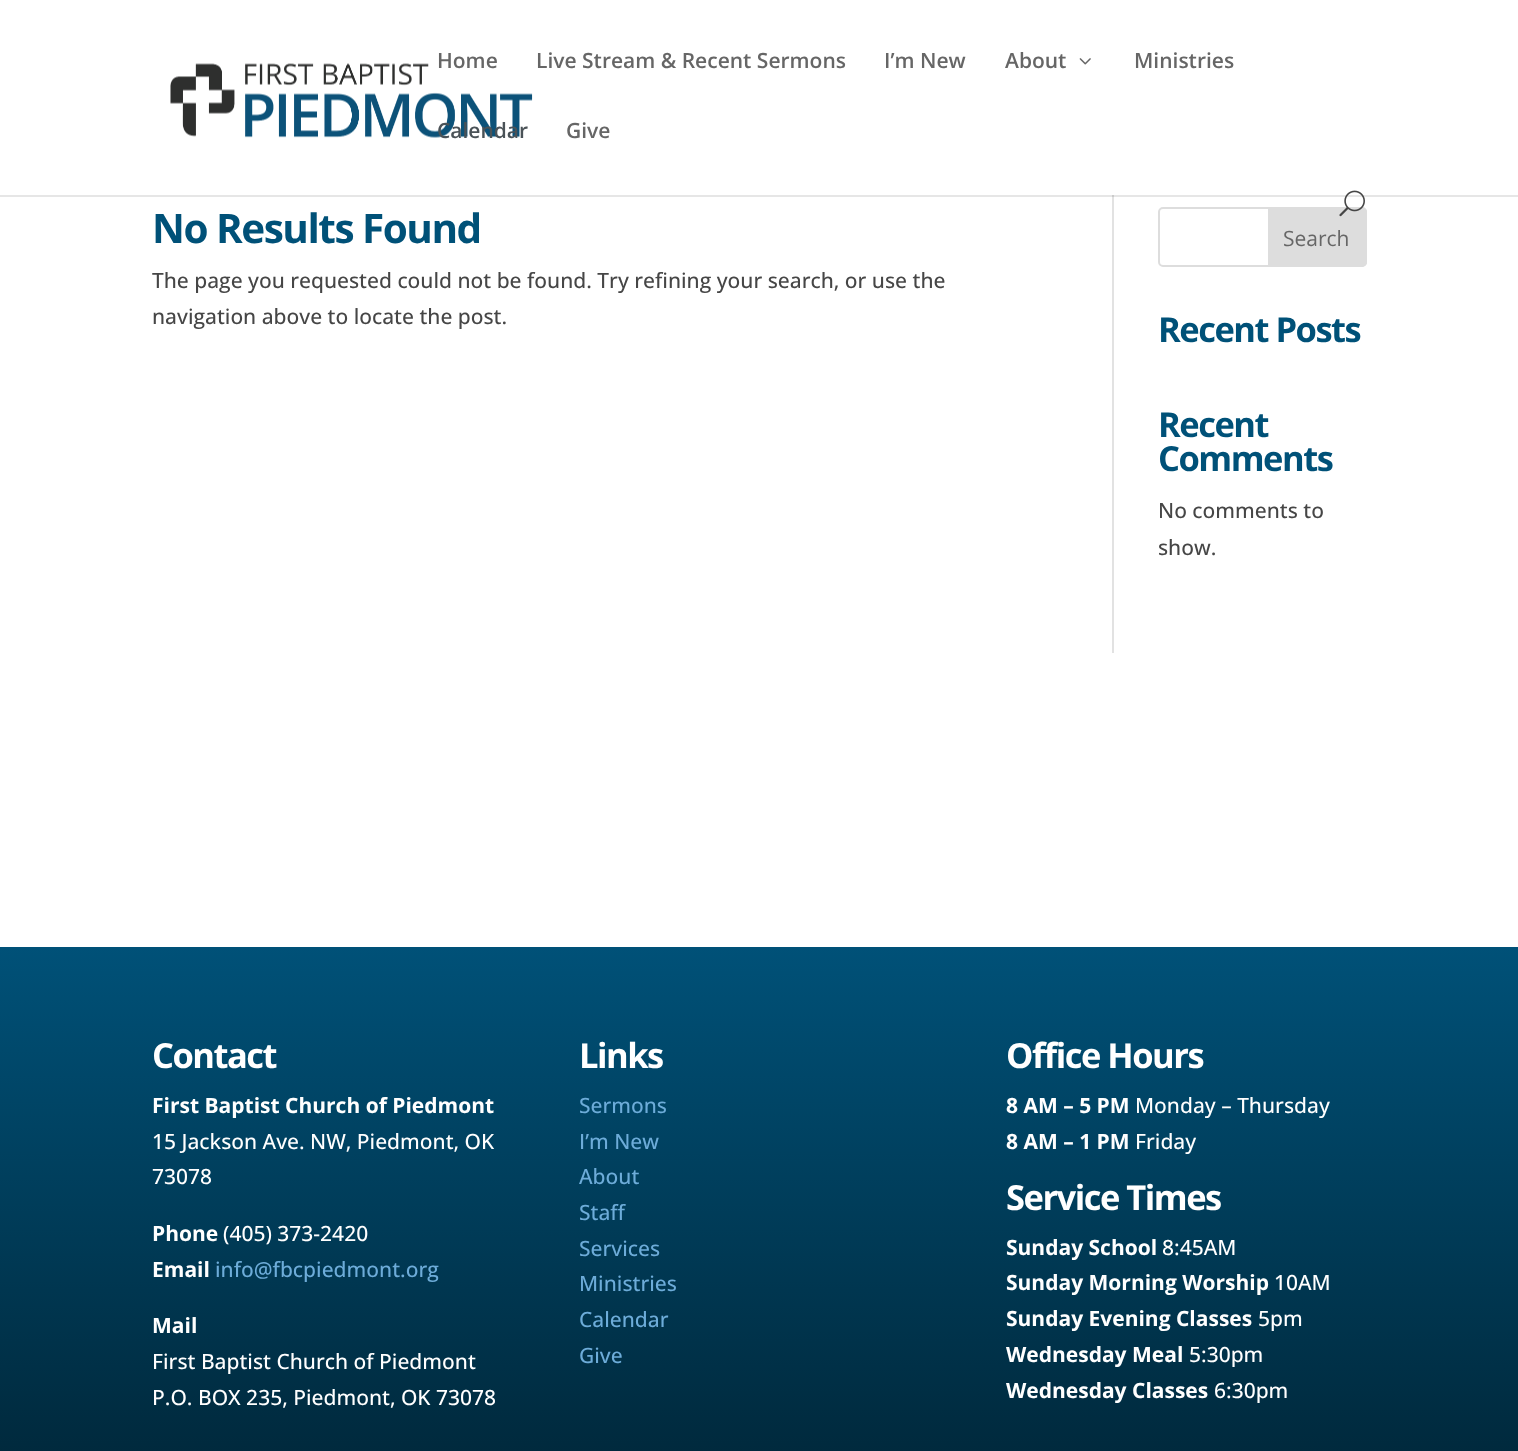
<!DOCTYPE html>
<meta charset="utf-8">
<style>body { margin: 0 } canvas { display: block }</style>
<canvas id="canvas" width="1518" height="1451"></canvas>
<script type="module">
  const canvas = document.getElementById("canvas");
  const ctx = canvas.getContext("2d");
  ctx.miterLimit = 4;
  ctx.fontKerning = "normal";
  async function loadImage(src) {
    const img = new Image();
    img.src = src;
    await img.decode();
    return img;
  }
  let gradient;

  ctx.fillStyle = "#ffffff";
  ctx.fillRect(0, 0, 1518, 1451);
  ctx.fillStyle = "#e6e6e6";
  ctx.fillRect(0, 195, 1518, 2);
  ctx.drawImage(await loadImage("img1.png"), 170, 63, 363, 75);
  ctx.font = "600 21px Open Sans";
  ctx.fillStyle = "#666666";
  ctx.fillText("Home", 437, 68);
  ctx.fillText("Live Stream & Recent Sermons", 536, 68);
  ctx.fillText("I’m New", 884, 68);
  ctx.fillText("About", 1005, 68);
  ctx.drawImage(await loadImage("img2.png"), 1079, 58, 12, 7);
  ctx.fillText("Ministries", 1134, 68);
  ctx.fillStyle = "#4a5257";
  ctx.fillText("Calendar", 437, 138);
  ctx.fillStyle = "#666666";
  ctx.fillText("Give", 566, 138);
  ctx.beginPath();
  ctx.roundRect(1159, 208, 207, 58, 4);
  ctx.strokeStyle = "#dddddd";
  ctx.lineWidth = 2;
  ctx.stroke();
  ctx.fillStyle = "#dddddd";
  ctx.beginPath();
  ctx.roundRect(1269, 208, 97, 58, [0, 4, 4, 0]);
  ctx.fill();
  ctx.stroke();
  ctx.drawImage(await loadImage("img3.png"), 1339, 190, 26, 27);
  ctx.fillStyle = "#e2e2e2";
  ctx.fillRect(1112, 197, 2, 456);
  ctx.fillStyle = "#cbcbcb";
  ctx.fillRect(1112, 195, 2, 2);
  ctx.letterSpacing = "-1.5px";
  ctx.font = "bold 40.5px Open Sans";
  ctx.fillStyle = "#005178";
  ctx.fillText("No Results Found", 152, 243);
  ctx.letterSpacing = "0px";
  ctx.font = "500 21px Open Sans";
  ctx.fillStyle = "#464646";
  ctx.fillText("The page you requested could not be found. Try refining your search, or use the", 152, 288);
  ctx.fillText("navigation above to locate the post.", 152, 324);
  ctx.font = "21px Open Sans";
  ctx.fillStyle = "#666666";
  ctx.fillText("Search", 1283, 246);
  ctx.letterSpacing = "-1.5px";
  ctx.font = "bold 34.5px Open Sans";
  ctx.fillStyle = "#005178";
  ctx.fillText("Recent Posts", 1158, 342);
  ctx.fillText("Recent", 1158, 437);
  ctx.fillText("Comments", 1158, 471);
  ctx.letterSpacing = "0px";
  ctx.font = "500 21px Open Sans";
  ctx.fillStyle = "#464646";
  ctx.fillText("No comments to", 1158, 518);
  ctx.fillText("show.", 1158, 555);
  gradient = ctx.createLinearGradient(759, 947, 759, 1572);
  gradient.addColorStop(0, "#005178");
  gradient.addColorStop(1, "#00202f");
  ctx.fillStyle = gradient;
  ctx.fillRect(0, 947, 1518, 504);
  ctx.letterSpacing = "-1.5px";
  ctx.font = "bold 34.5px Open Sans";
  ctx.fillStyle = "#ffffff";
  ctx.fillText("Contact", 152, 1068);
  ctx.letterSpacing = "0px";
  ctx.font = "bold 21px Open Sans";
  ctx.fillText("First Baptist Church of Piedmont", 152, 1113);
  ctx.font = "500 21px Open Sans";
  ctx.fillText("15 Jackson Ave. NW, Piedmont, OK", 152, 1149);
  ctx.fillText("73078", 152, 1184);
  ctx.font = "bold 21px Open Sans";
  ctx.fillText("Phone", 152, 1241);
  ctx.font = "500 21px Open Sans";
  ctx.fillText("(405) 373-2420", 223, 1241);
  ctx.font = "bold 21px Open Sans";
  ctx.fillText("Email", 152, 1277);
  ctx.font = "500 21px Open Sans";
  ctx.fillStyle = "#6dacd9";
  ctx.fillText("info@fbcpiedmont.org", 215, 1277);
  ctx.font = "bold 21px Open Sans";
  ctx.fillStyle = "#ffffff";
  ctx.fillText("Mail", 152, 1333);
  ctx.font = "500 21px Open Sans";
  ctx.fillText("First Baptist Church of Piedmont", 152, 1369);
  ctx.fillText("P.O. BOX 235, Piedmont, OK 73078", 152, 1405);
  ctx.letterSpacing = "-1.5px";
  ctx.font = "bold 34.5px Open Sans";
  ctx.fillText("Links", 579, 1068);
  ctx.letterSpacing = "0px";
  ctx.font = "500 21px Open Sans";
  ctx.fillStyle = "#6dacd9";
  ctx.fillText("Sermons", 579, 1113);
  ctx.fillText("I’m New", 579, 1149);
  ctx.fillText("About", 579, 1184);
  ctx.fillText("Staff", 579, 1220);
  ctx.fillText("Services", 579, 1256);
  ctx.fillText("Ministries", 579, 1291);
  ctx.fillText("Calendar", 579, 1327);
  ctx.fillText("Give", 579, 1363);
  ctx.letterSpacing = "-1.5px";
  ctx.font = "bold 34.5px Open Sans";
  ctx.fillStyle = "#ffffff";
  ctx.fillText("Office Hours", 1006, 1068);
  ctx.letterSpacing = "0px";
  ctx.font = "bold 21px Open Sans";
  ctx.fillText("8 AM – 5 PM", 1006, 1113);
  ctx.font = "500 21px Open Sans";
  ctx.fillText("Monday – Thursday", 1135, 1113);
  ctx.font = "bold 21px Open Sans";
  ctx.fillText("8 AM – 1 PM", 1006, 1149);
  ctx.font = "500 21px Open Sans";
  ctx.fillText("Friday", 1135, 1149);
  ctx.letterSpacing = "-1.5px";
  ctx.font = "bold 34.5px Open Sans";
  ctx.fillText("Service Times", 1006, 1210);
  ctx.letterSpacing = "0px";
  ctx.font = "bold 21px Open Sans";
  ctx.fillText("Sunday School", 1006, 1255);
  ctx.font = "500 21px Open Sans";
  ctx.fillText("8:45AM", 1162, 1255);
  ctx.font = "bold 21px Open Sans";
  ctx.fillText("Sunday Morning Worship", 1006, 1290);
  ctx.font = "500 21px Open Sans";
  ctx.fillText("10AM", 1274, 1290);
  ctx.font = "bold 21px Open Sans";
  ctx.fillText("Sunday Evening Classes", 1006, 1326);
  ctx.font = "500 21px Open Sans";
  ctx.fillText("5pm", 1258, 1326);
  ctx.font = "bold 21px Open Sans";
  ctx.fillText("Wednesday Meal", 1006, 1362);
  ctx.font = "500 21px Open Sans";
  ctx.fillText("5:30pm", 1189, 1362);
  ctx.font = "bold 21px Open Sans";
  ctx.fillText("Wednesday Classes", 1006, 1398);
  ctx.font = "500 21px Open Sans";
  ctx.fillText("6:30pm", 1214, 1398);
</script>
